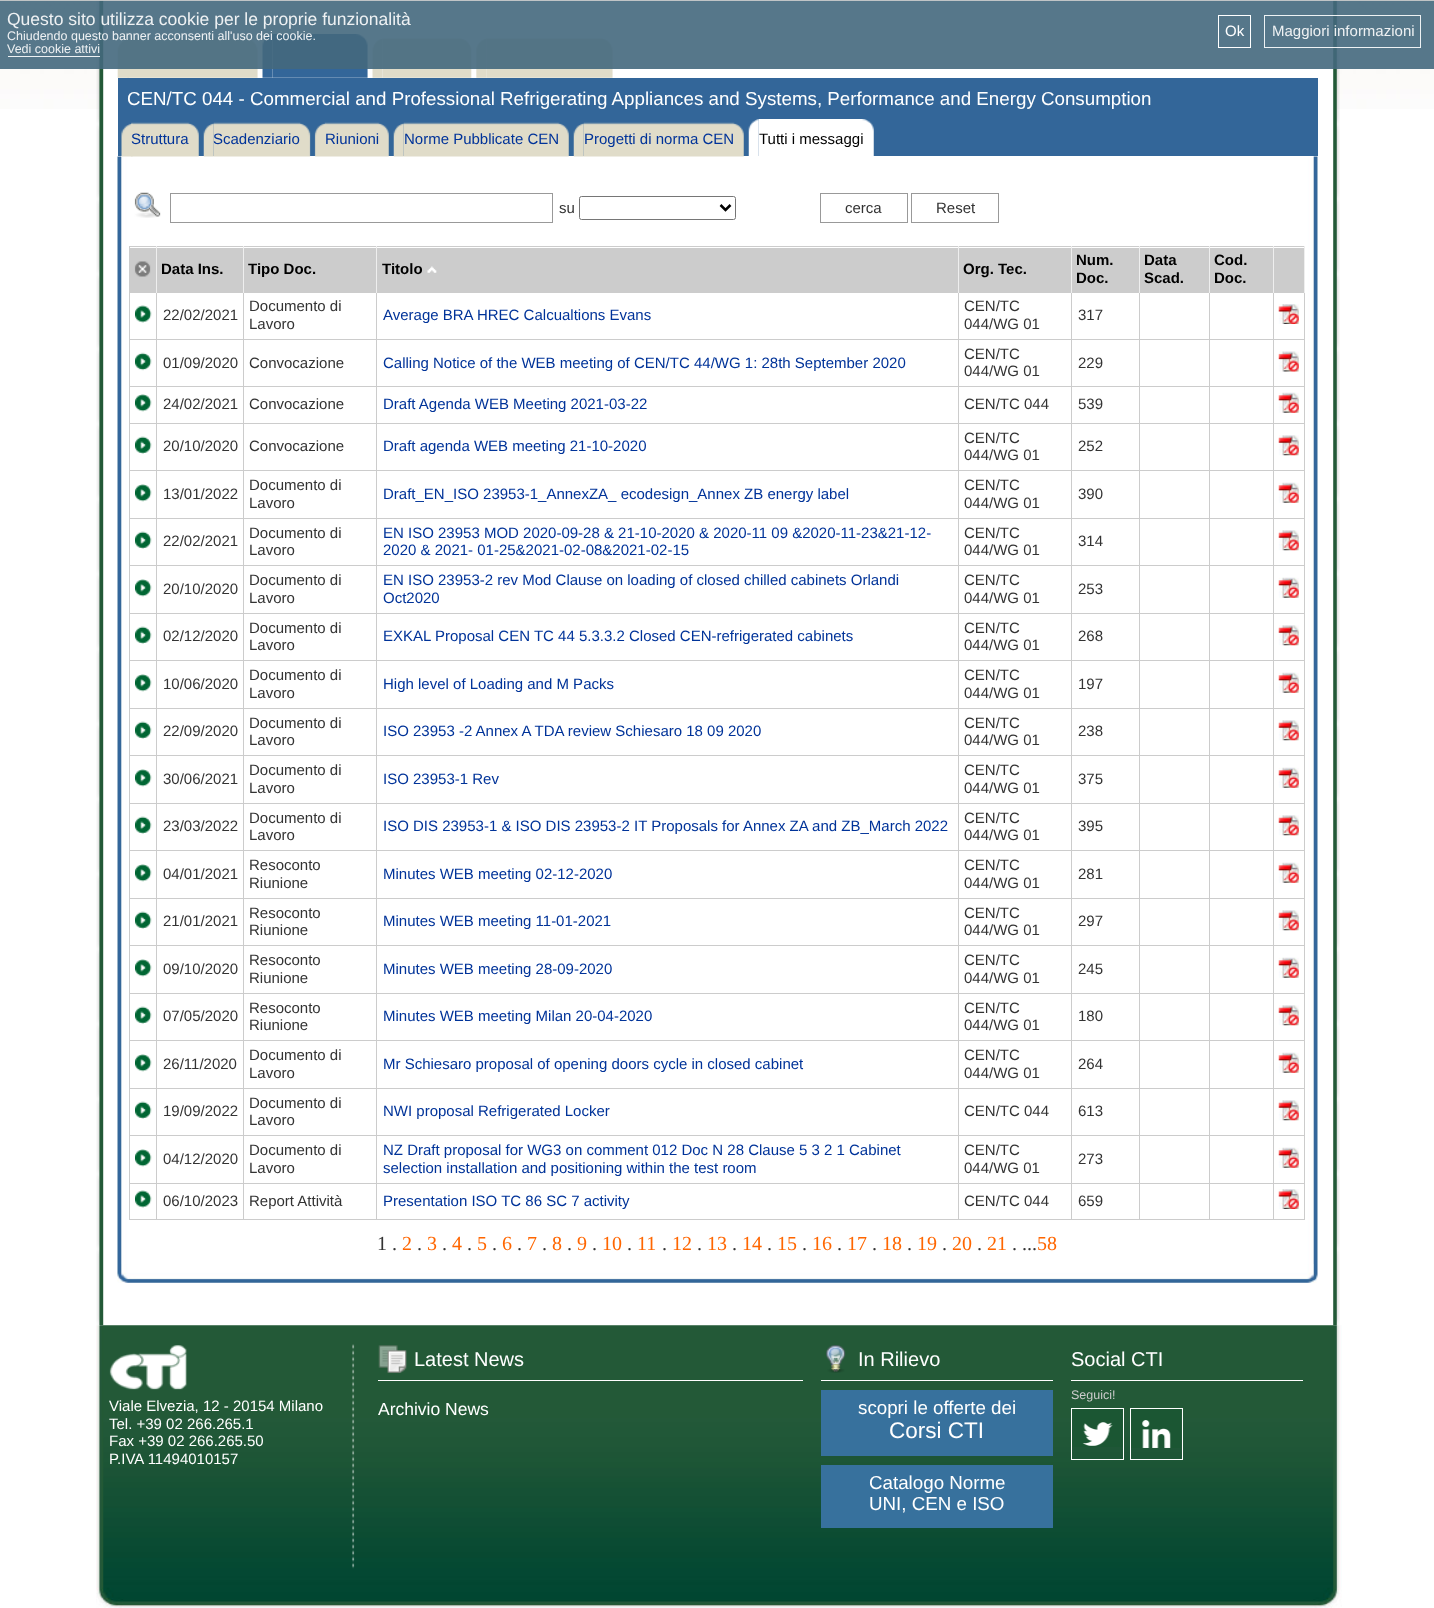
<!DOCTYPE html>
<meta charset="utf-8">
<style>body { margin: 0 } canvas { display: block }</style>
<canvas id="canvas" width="1434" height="1608"></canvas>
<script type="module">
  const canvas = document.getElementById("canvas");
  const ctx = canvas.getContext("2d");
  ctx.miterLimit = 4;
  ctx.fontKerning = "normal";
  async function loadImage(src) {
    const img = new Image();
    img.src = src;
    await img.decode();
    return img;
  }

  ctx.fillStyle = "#ffffff";
  ctx.fillRect(0, 0, 1434, 1608);
  ctx.drawImage(await loadImage("img1.png"), 0, 0, 1434, 109);
  ctx.drawImage(await loadImage("img2.png"), 96, 0, 1244, 1326);
  ctx.drawImage(await loadImage("img3.png"), 117, 38, 12, 40);
  ctx.drawImage(await loadImage("img4.png"), 127, 37, 131, 41);
  ctx.drawImage(await loadImage("img5.png"), 262, 34, 11, 44);
  ctx.drawImage(await loadImage("img6.png"), 272, 34, 96, 44);
  ctx.drawImage(await loadImage("img7.png"), 372, 38, 11, 40);
  ctx.drawImage(await loadImage("img8.png"), 382, 37, 90, 41);
  ctx.drawImage(await loadImage("img9.png"), 476, 38, 11, 40);
  ctx.drawImage(await loadImage("img10.png"), 486, 37, 127, 41);
  ctx.fillStyle = "rgba(68, 104, 125, 0.9)";
  ctx.fillRect(0, 0, 1434, 69);
  ctx.fillStyle = "rgba(204, 204, 204, 0.9)";
  ctx.fillRect(0, 0, 1434, 1);
  ctx.font = "17.5px Liberation Sans";
  ctx.fillStyle = "#eef1f3";
  ctx.fillText("Questo sito utilizza cookie per le proprie funzionalità", 7, 25);
  ctx.font = "12.5px Liberation Sans";
  ctx.fillText("Chiudendo questo banner acconsenti all'uso dei cookie.", 7, 40);
  ctx.fillText("Vedi cookie attivi", 7, 53);
  ctx.fillStyle = "rgba(255, 255, 255, 0.9)";
  ctx.fillRect(8, 56, 92, 1);
  ctx.strokeStyle = "#ffffff";
  ctx.strokeRect(1218.5, 15.5, 32, 32);
  ctx.font = "15px Liberation Sans";
  ctx.fillStyle = "#ffffff";
  ctx.fillText("Ok", 1225, 36);
  ctx.strokeStyle = "rgba(255, 255, 255, 0.9)";
  ctx.strokeRect(1264.5, 15.5, 156, 32);
  ctx.fillStyle = "#eef1f3";
  ctx.fillText("Maggiori informazioni", 1272, 36);
  ctx.fillStyle = "#336699";
  ctx.fillRect(118, 78, 1200, 78);
  ctx.font = "18.75px Liberation Sans";
  ctx.fillStyle = "#ffffff";
  ctx.fillText("CEN/TC 044 - Commercial and Professional Refrigerating Appliances and Systems, Performance and Energy Consumption", 127, 105);
  ctx.drawImage(await loadImage("img21.png"), 117, 156, 1201, 1108);
  ctx.drawImage(await loadImage("img11.png"), 121, 123, 12, 34);
  ctx.drawImage(await loadImage("img12.png"), 131, 122, 68, 35);
  ctx.font = "15px Liberation Sans";
  ctx.fillStyle = "#003399";
  ctx.fillText("Struttura", 131, 144);
  ctx.drawImage(await loadImage("img13.png"), 203, 123, 11, 34);
  ctx.drawImage(await loadImage("img14.png"), 213, 122, 98, 35);
  ctx.fillText("Scadenziario", 213, 144);
  ctx.drawImage(await loadImage("img15.png"), 314, 122, 11, 35);
  ctx.drawImage(await loadImage("img16.png"), 325, 122, 64, 35);
  ctx.fillText("Riunioni", 325, 144);
  ctx.drawImage(await loadImage("img13.png"), 393, 123, 11, 34);
  ctx.drawImage(await loadImage("img17.png"), 403, 122, 166, 35);
  ctx.fillText("Norme Pubblicate CEN", 404, 144);
  ctx.drawImage(await loadImage("img13.png"), 573, 123, 11, 34);
  ctx.drawImage(await loadImage("img18.png"), 583, 122, 161, 35);
  ctx.fillText("Progetti di norma CEN", 584, 144);
  ctx.drawImage(await loadImage("img19.png"), 748, 119, 11, 37);
  ctx.drawImage(await loadImage("img20.png"), 758, 119, 116, 37);
  ctx.fillStyle = "#000000";
  ctx.fillText("Tutti i messaggi", 759, 144);
  ctx.drawImage(await loadImage("img22.png"), 134, 192, 27, 26);
  ctx.strokeStyle = "#999999";
  ctx.strokeRect(170.5, 193.5, 382, 29);
  ctx.fillStyle = "#333333";
  ctx.fillText("su", 559, 213);
  ctx.beginPath();
  ctx.roundRect(579.5, 196.5, 156, 23, 2);
  ctx.strokeStyle = "#767676";
  ctx.stroke();
  ctx.beginPath();
  ctx.moveTo(720.5, 205);
  ctx.lineTo(725.5, 210);
  ctx.lineTo(730.5, 205);
  ctx.strokeStyle = "#000000";
  ctx.lineWidth = 2.5;
  ctx.stroke();
  ctx.strokeStyle = "#999999";
  ctx.lineWidth = 1;
  ctx.strokeRect(820.5, 193.5, 87, 29);
  ctx.fillText("cerca", 845, 213);
  ctx.strokeRect(911.5, 193.5, 87, 29);
  ctx.fillText("Reset", 936, 213);
  ctx.fillStyle = "#cccccc";
  ctx.fillRect(129, 246, 1176, 1);
  ctx.fillRect(1304, 293, 1, 927);
  ctx.fillRect(129, 1219, 1176, 1);
  ctx.fillRect(129, 246, 1, 974);
  ctx.fillRect(130, 248, 113, 45);
  ctx.fillRect(129, 339, 1176, 1);
  ctx.fillRect(129, 386, 1176, 1);
  ctx.fillRect(129, 423, 1176, 1);
  ctx.fillRect(129, 470, 1176, 1);
  ctx.fillRect(129, 518, 1176, 1);
  ctx.fillRect(129, 565, 1176, 1);
  ctx.fillRect(129, 613, 1176, 1);
  ctx.fillRect(129, 660, 1176, 1);
  ctx.fillRect(129, 708, 1176, 1);
  ctx.fillRect(129, 755, 1176, 1);
  ctx.fillRect(129, 803, 1176, 1);
  ctx.fillRect(129, 850, 1176, 1);
  ctx.fillRect(129, 898, 1176, 1);
  ctx.fillRect(129, 945, 1176, 1);
  ctx.fillRect(129, 993, 1176, 1);
  ctx.fillRect(129, 1040, 1176, 1);
  ctx.fillRect(129, 1088, 1176, 1);
  ctx.fillRect(129, 1135, 1176, 1);
  ctx.fillRect(129, 1183, 1176, 1);
  ctx.fillRect(156, 1183, 1, 37);
  ctx.fillRect(156, 1135, 1, 49);
  ctx.fillRect(156, 1088, 1, 48);
  ctx.fillRect(156, 1040, 1, 49);
  ctx.fillRect(156, 993, 1, 48);
  ctx.fillRect(156, 945, 1, 49);
  ctx.fillRect(156, 898, 1, 48);
  ctx.fillRect(156, 850, 1, 49);
  ctx.fillRect(156, 803, 1, 48);
  ctx.fillRect(156, 755, 1, 49);
  ctx.fillRect(156, 708, 1, 48);
  ctx.fillRect(156, 660, 1, 49);
  ctx.fillRect(156, 613, 1, 48);
  ctx.fillRect(156, 565, 1, 49);
  ctx.fillRect(156, 518, 1, 48);
  ctx.fillRect(156, 470, 1, 49);
  ctx.fillRect(156, 423, 1, 48);
  ctx.fillRect(156, 386, 1, 38);
  ctx.fillRect(156, 291, 1, 97);
  ctx.fillStyle = "#eeeeee";
  ctx.fillRect(156, 246, 1, 47);
  ctx.drawImage(await loadImage("img23.png"), 134, 261, 17, 16);
  ctx.fillStyle = "#cccccc";
  ctx.fillRect(1139, 1183, 1, 37);
  ctx.fillRect(1139, 1135, 1, 49);
  ctx.fillRect(1139, 1088, 1, 48);
  ctx.fillRect(1139, 1040, 1, 49);
  ctx.fillRect(1139, 993, 1, 48);
  ctx.fillRect(1139, 945, 1, 49);
  ctx.fillRect(1139, 898, 1, 48);
  ctx.fillRect(1139, 850, 1, 49);
  ctx.fillRect(1139, 803, 1, 48);
  ctx.fillRect(1139, 755, 1, 49);
  ctx.fillRect(1139, 708, 1, 48);
  ctx.fillRect(1139, 660, 1, 49);
  ctx.fillRect(1139, 613, 1, 48);
  ctx.fillRect(1139, 565, 1, 49);
  ctx.fillRect(1139, 518, 1, 48);
  ctx.fillRect(1139, 470, 1, 49);
  ctx.fillRect(1139, 423, 1, 48);
  ctx.fillRect(1139, 386, 1, 38);
  ctx.fillRect(1139, 291, 1, 97);
  ctx.fillStyle = "#eeeeee";
  ctx.fillRect(1139, 246, 1, 47);
  ctx.fillStyle = "#cccccc";
  ctx.fillRect(959, 248, 180, 45);
  ctx.font = "bold 15px Liberation Sans";
  ctx.fillStyle = "#000000";
  ctx.fillText("Num.", 1076, 265);
  ctx.fillText("Doc.", 1076, 283);
  ctx.fillStyle = "#cccccc";
  ctx.fillRect(1140, 248, 69, 45);
  ctx.fillRect(1209, 1183, 1, 37);
  ctx.fillRect(1209, 1135, 1, 49);
  ctx.fillRect(1209, 1088, 1, 48);
  ctx.fillRect(1209, 1040, 1, 49);
  ctx.fillRect(1209, 993, 1, 48);
  ctx.fillRect(1209, 945, 1, 49);
  ctx.fillRect(1209, 898, 1, 48);
  ctx.fillRect(1209, 850, 1, 49);
  ctx.fillRect(1209, 803, 1, 48);
  ctx.fillRect(1209, 755, 1, 49);
  ctx.fillRect(1209, 708, 1, 48);
  ctx.fillRect(1209, 660, 1, 49);
  ctx.fillRect(1209, 613, 1, 48);
  ctx.fillRect(1209, 565, 1, 49);
  ctx.fillRect(1209, 518, 1, 48);
  ctx.fillRect(1209, 470, 1, 49);
  ctx.fillRect(1209, 423, 1, 48);
  ctx.fillRect(1209, 386, 1, 38);
  ctx.fillRect(1209, 291, 1, 97);
  ctx.fillStyle = "#eeeeee";
  ctx.fillRect(1209, 246, 1, 47);
  ctx.fillStyle = "#000000";
  ctx.fillText("Data", 1144, 265);
  ctx.fillText("Scad.", 1144, 283);
  ctx.fillStyle = "#cccccc";
  ctx.fillRect(1210, 248, 63, 45);
  ctx.fillRect(1273, 1183, 1, 37);
  ctx.fillRect(1273, 1135, 1, 49);
  ctx.fillRect(1273, 1088, 1, 48);
  ctx.fillRect(1273, 1040, 1, 49);
  ctx.fillRect(1273, 993, 1, 48);
  ctx.fillRect(1273, 945, 1, 49);
  ctx.fillRect(1273, 898, 1, 48);
  ctx.fillRect(1273, 850, 1, 49);
  ctx.fillRect(1273, 803, 1, 48);
  ctx.fillRect(1273, 755, 1, 49);
  ctx.fillRect(1273, 708, 1, 48);
  ctx.fillRect(1273, 660, 1, 49);
  ctx.fillRect(1273, 613, 1, 48);
  ctx.fillRect(1273, 565, 1, 49);
  ctx.fillRect(1273, 518, 1, 48);
  ctx.fillRect(1273, 470, 1, 49);
  ctx.fillRect(1273, 423, 1, 48);
  ctx.fillRect(1273, 386, 1, 38);
  ctx.fillRect(1273, 291, 1, 97);
  ctx.fillStyle = "#eeeeee";
  ctx.fillRect(1273, 246, 1, 47);
  ctx.fillStyle = "#000000";
  ctx.fillText("Cod.", 1214, 265);
  ctx.fillText("Doc.", 1214, 283);
  ctx.fillStyle = "#cccccc";
  ctx.fillRect(1274, 248, 30, 45);
  ctx.fillStyle = "#eeeeee";
  ctx.fillRect(1304, 246, 1, 47);
  ctx.fillStyle = "#cccccc";
  ctx.fillRect(243, 1183, 1, 37);
  ctx.fillRect(243, 1135, 1, 49);
  ctx.fillRect(243, 1088, 1, 48);
  ctx.fillRect(243, 1040, 1, 49);
  ctx.fillRect(243, 993, 1, 48);
  ctx.fillRect(243, 945, 1, 49);
  ctx.fillRect(243, 898, 1, 48);
  ctx.fillRect(243, 850, 1, 49);
  ctx.fillRect(243, 803, 1, 48);
  ctx.fillRect(243, 755, 1, 49);
  ctx.fillRect(243, 708, 1, 48);
  ctx.fillRect(243, 660, 1, 49);
  ctx.fillRect(243, 613, 1, 48);
  ctx.fillRect(243, 565, 1, 49);
  ctx.fillRect(243, 518, 1, 48);
  ctx.fillRect(243, 470, 1, 49);
  ctx.fillRect(243, 423, 1, 48);
  ctx.fillRect(243, 386, 1, 38);
  ctx.fillRect(243, 291, 1, 97);
  ctx.fillStyle = "#eeeeee";
  ctx.fillRect(243, 246, 1, 47);
  ctx.fillStyle = "#000000";
  ctx.fillText("Data Ins.", 161, 274);
  ctx.fillStyle = "#cccccc";
  ctx.fillRect(244, 248, 714, 45);
  ctx.fillRect(376, 1183, 1, 37);
  ctx.fillRect(376, 1135, 1, 49);
  ctx.fillRect(376, 1088, 1, 48);
  ctx.fillRect(376, 1040, 1, 49);
  ctx.fillRect(376, 993, 1, 48);
  ctx.fillRect(376, 945, 1, 49);
  ctx.fillRect(376, 898, 1, 48);
  ctx.fillRect(376, 850, 1, 49);
  ctx.fillRect(376, 803, 1, 48);
  ctx.fillRect(376, 755, 1, 49);
  ctx.fillRect(376, 708, 1, 48);
  ctx.fillRect(376, 660, 1, 49);
  ctx.fillRect(376, 613, 1, 48);
  ctx.fillRect(376, 565, 1, 49);
  ctx.fillRect(376, 518, 1, 48);
  ctx.fillRect(376, 470, 1, 49);
  ctx.fillRect(376, 423, 1, 48);
  ctx.fillRect(376, 386, 1, 38);
  ctx.fillRect(376, 291, 1, 97);
  ctx.fillStyle = "#eeeeee";
  ctx.fillRect(376, 246, 1, 47);
  ctx.fillStyle = "#000000";
  ctx.fillText("Tipo Doc.", 248, 274);
  ctx.fillStyle = "#cccccc";
  ctx.fillRect(958, 1183, 1, 37);
  ctx.fillRect(958, 1135, 1, 49);
  ctx.fillRect(958, 1088, 1, 48);
  ctx.fillRect(958, 1040, 1, 49);
  ctx.fillRect(958, 993, 1, 48);
  ctx.fillRect(958, 945, 1, 49);
  ctx.fillRect(958, 898, 1, 48);
  ctx.fillRect(958, 850, 1, 49);
  ctx.fillRect(958, 803, 1, 48);
  ctx.fillRect(958, 755, 1, 49);
  ctx.fillRect(958, 708, 1, 48);
  ctx.fillRect(958, 660, 1, 49);
  ctx.fillRect(958, 613, 1, 48);
  ctx.fillRect(958, 565, 1, 49);
  ctx.fillRect(958, 518, 1, 48);
  ctx.fillRect(958, 470, 1, 49);
  ctx.fillRect(958, 423, 1, 48);
  ctx.fillRect(958, 386, 1, 38);
  ctx.fillRect(958, 291, 1, 97);
  ctx.fillStyle = "#eeeeee";
  ctx.fillRect(958, 246, 1, 47);
  ctx.fillStyle = "#000000";
  ctx.fillText("Titolo", 382, 274);
  ctx.drawImage(await loadImage("img24.png"), 427, 266, 10, 7);
  ctx.fillStyle = "#cccccc";
  ctx.fillRect(1071, 1183, 1, 37);
  ctx.fillRect(1071, 1135, 1, 49);
  ctx.fillRect(1071, 1088, 1, 48);
  ctx.fillRect(1071, 1040, 1, 49);
  ctx.fillRect(1071, 993, 1, 48);
  ctx.fillRect(1071, 945, 1, 49);
  ctx.fillRect(1071, 898, 1, 48);
  ctx.fillRect(1071, 850, 1, 49);
  ctx.fillRect(1071, 803, 1, 48);
  ctx.fillRect(1071, 755, 1, 49);
  ctx.fillRect(1071, 708, 1, 48);
  ctx.fillRect(1071, 660, 1, 49);
  ctx.fillRect(1071, 613, 1, 48);
  ctx.fillRect(1071, 565, 1, 49);
  ctx.fillRect(1071, 518, 1, 48);
  ctx.fillRect(1071, 470, 1, 49);
  ctx.fillRect(1071, 423, 1, 48);
  ctx.fillRect(1071, 386, 1, 38);
  ctx.fillRect(1071, 291, 1, 97);
  ctx.fillStyle = "#eeeeee";
  ctx.fillRect(1071, 246, 1, 47);
  ctx.fillStyle = "#000000";
  ctx.fillText("Org. Tec.", 963, 274);
  ctx.drawImage(await loadImage("img25.png"), 135, 305, 17, 18);
  ctx.font = "15px Liberation Sans";
  ctx.fillStyle = "#333333";
  ctx.fillText("22/02/2021", 163, 320);
  ctx.fillText("Documento di", 249, 311);
  ctx.fillText("Lavoro", 249, 329);
  ctx.fillStyle = "#003399";
  ctx.fillText("Average BRA HREC Calcualtions Evans", 383, 320);
  ctx.fillStyle = "#333333";
  ctx.fillText("CEN/TC", 964, 311);
  ctx.fillText("044/WG 01", 964, 329);
  ctx.fillText("317", 1078, 320);
  ctx.drawImage(await loadImage("img26.png"), 1278, 304, 21, 20);
  ctx.drawImage(await loadImage("img27.png"), 135, 352, 17, 19);
  ctx.drawImage(await loadImage("img28.png"), 1278, 351, 21, 21);
  ctx.fillText("01/09/2020", 163, 368);
  ctx.fillText("Convocazione", 249, 368);
  ctx.fillStyle = "#003399";
  ctx.fillText("Calling Notice of the WEB meeting of CEN/TC 44/WG 1: 28th September 2020", 383, 368);
  ctx.fillStyle = "#333333";
  ctx.fillText("CEN/TC", 964, 359);
  ctx.fillText("044/WG 01", 964, 376);
  ctx.fillText("229", 1078, 368);
  ctx.drawImage(await loadImage("img29.png"), 1278, 392, 21, 21);
  ctx.drawImage(await loadImage("img30.png"), 135, 394, 17, 18);
  ctx.fillText("24/02/2021", 163, 409);
  ctx.fillText("Convocazione", 249, 409);
  ctx.fillStyle = "#003399";
  ctx.fillText("Draft Agenda WEB Meeting 2021-03-22", 383, 409);
  ctx.fillStyle = "#333333";
  ctx.fillText("CEN/TC 044", 964, 409);
  ctx.fillText("539", 1078, 409);
  ctx.drawImage(await loadImage("img31.png"), 1278, 435, 21, 21);
  ctx.drawImage(await loadImage("img32.png"), 135, 436, 17, 18);
  ctx.fillText("20/10/2020", 163, 451);
  ctx.fillText("Convocazione", 249, 451);
  ctx.fillStyle = "#003399";
  ctx.fillText("Draft agenda WEB meeting 21-10-2020", 383, 451);
  ctx.fillStyle = "#333333";
  ctx.fillText("CEN/TC", 964, 443);
  ctx.fillText("044/WG 01", 964, 460);
  ctx.fillText("252", 1078, 451);
  ctx.drawImage(await loadImage("img29.png"), 1278, 482, 21, 21);
  ctx.drawImage(await loadImage("img30.png"), 135, 484, 17, 18);
  ctx.fillText("13/01/2022", 163, 499);
  ctx.fillText("Documento di", 249, 490);
  ctx.fillText("Lavoro", 249, 508);
  ctx.fillStyle = "#003399";
  ctx.fillText("Draft_EN_ISO 23953-1_AnnexZA_ ecodesign_Annex ZB energy label", 383, 499);
  ctx.fillStyle = "#333333";
  ctx.fillText("CEN/TC", 964, 490);
  ctx.fillText("044/WG 01", 964, 508);
  ctx.fillText("390", 1078, 499);
  ctx.drawImage(await loadImage("img31.png"), 1278, 530, 21, 21);
  ctx.drawImage(await loadImage("img32.png"), 135, 531, 17, 18);
  ctx.fillText("22/02/2021", 163, 546);
  ctx.fillText("Documento di", 249, 538);
  ctx.fillText("Lavoro", 249, 555);
  ctx.fillStyle = "#003399";
  ctx.fillText("EN ISO 23953 MOD 2020-09-28 & 21-10-2020 & 2020-11 09 &2020-11-23&21-12-", 383, 538);
  ctx.fillText("2020 & 2021- 01-25&2021-02-08&2021-02-15", 383, 555);
  ctx.fillStyle = "#333333";
  ctx.fillText("CEN/TC", 964, 538);
  ctx.fillText("044/WG 01", 964, 555);
  ctx.fillText("314", 1078, 546);
  ctx.drawImage(await loadImage("img29.png"), 1278, 577, 21, 21);
  ctx.drawImage(await loadImage("img30.png"), 135, 579, 17, 18);
  ctx.fillText("20/10/2020", 163, 594);
  ctx.fillText("Documento di", 249, 585);
  ctx.fillText("Lavoro", 249, 603);
  ctx.fillStyle = "#003399";
  ctx.fillText("EN ISO 23953-2 rev Mod Clause on loading of closed chilled cabinets Orlandi", 383, 585);
  ctx.fillText("Oct2020", 383, 603);
  ctx.fillStyle = "#333333";
  ctx.fillText("CEN/TC", 964, 585);
  ctx.fillText("044/WG 01", 964, 603);
  ctx.fillText("253", 1078, 594);
  ctx.drawImage(await loadImage("img31.png"), 1278, 625, 21, 21);
  ctx.drawImage(await loadImage("img32.png"), 135, 626, 17, 18);
  ctx.fillText("02/12/2020", 163, 641);
  ctx.fillText("Documento di", 249, 633);
  ctx.fillText("Lavoro", 249, 650);
  ctx.fillStyle = "#003399";
  ctx.fillText("EXKAL Proposal CEN TC 44 5.3.3.2 Closed CEN-refrigerated cabinets", 383, 641);
  ctx.fillStyle = "#333333";
  ctx.fillText("CEN/TC", 964, 633);
  ctx.fillText("044/WG 01", 964, 650);
  ctx.fillText("268", 1078, 641);
  ctx.drawImage(await loadImage("img29.png"), 1278, 672, 21, 21);
  ctx.drawImage(await loadImage("img30.png"), 135, 674, 17, 18);
  ctx.fillText("10/06/2020", 163, 689);
  ctx.fillText("Documento di", 249, 680);
  ctx.fillText("Lavoro", 249, 698);
  ctx.fillStyle = "#003399";
  ctx.fillText("High level of Loading and M Packs", 383, 689);
  ctx.fillStyle = "#333333";
  ctx.fillText("CEN/TC", 964, 680);
  ctx.fillText("044/WG 01", 964, 698);
  ctx.fillText("197", 1078, 689);
  ctx.drawImage(await loadImage("img31.png"), 1278, 720, 21, 21);
  ctx.drawImage(await loadImage("img32.png"), 135, 721, 17, 18);
  ctx.fillText("22/09/2020", 163, 736);
  ctx.fillText("Documento di", 249, 728);
  ctx.fillText("Lavoro", 249, 745);
  ctx.fillStyle = "#003399";
  ctx.fillText("ISO 23953 -2 Annex A TDA review Schiesaro 18 09 2020", 383, 736);
  ctx.fillStyle = "#333333";
  ctx.fillText("CEN/TC", 964, 728);
  ctx.fillText("044/WG 01", 964, 745);
  ctx.fillText("238", 1078, 736);
  ctx.drawImage(await loadImage("img33.png"), 1278, 767, 21, 21);
  ctx.drawImage(await loadImage("img34.png"), 135, 769, 17, 18);
  ctx.fillText("30/06/2021", 163, 784);
  ctx.fillText("Documento di", 249, 775);
  ctx.fillText("Lavoro", 249, 793);
  ctx.fillStyle = "#003399";
  ctx.fillText("ISO 23953-1 Rev", 383, 784);
  ctx.fillStyle = "#333333";
  ctx.fillText("CEN/TC", 964, 775);
  ctx.fillText("044/WG 01", 964, 793);
  ctx.fillText("375", 1078, 784);
  ctx.drawImage(await loadImage("img31.png"), 1278, 815, 21, 21);
  ctx.drawImage(await loadImage("img32.png"), 135, 816, 17, 18);
  ctx.fillText("23/03/2022", 163, 831);
  ctx.fillText("Documento di", 249, 823);
  ctx.fillText("Lavoro", 249, 840);
  ctx.fillStyle = "#003399";
  ctx.fillText("ISO DIS 23953-1 & ISO DIS 23953-2 IT Proposals for Annex ZA and ZB_March 2022", 383, 831);
  ctx.fillStyle = "#333333";
  ctx.fillText("CEN/TC", 964, 823);
  ctx.fillText("044/WG 01", 964, 840);
  ctx.fillText("395", 1078, 831);
  ctx.drawImage(await loadImage("img29.png"), 1278, 862, 21, 21);
  ctx.drawImage(await loadImage("img30.png"), 135, 864, 17, 18);
  ctx.fillText("04/01/2021", 163, 879);
  ctx.fillText("Resoconto", 249, 870);
  ctx.fillText("Riunione", 249, 888);
  ctx.fillStyle = "#003399";
  ctx.fillText("Minutes WEB meeting 02-12-2020", 383, 879);
  ctx.fillStyle = "#333333";
  ctx.fillText("CEN/TC", 964, 870);
  ctx.fillText("044/WG 01", 964, 888);
  ctx.fillText("281", 1078, 879);
  ctx.drawImage(await loadImage("img31.png"), 1278, 910, 21, 21);
  ctx.drawImage(await loadImage("img32.png"), 135, 911, 17, 18);
  ctx.fillText("21/01/2021", 163, 926);
  ctx.fillText("Resoconto", 249, 918);
  ctx.fillText("Riunione", 249, 935);
  ctx.fillStyle = "#003399";
  ctx.fillText("Minutes WEB meeting 11-01-2021", 383, 926);
  ctx.fillStyle = "#333333";
  ctx.fillText("CEN/TC", 964, 918);
  ctx.fillText("044/WG 01", 964, 935);
  ctx.fillText("297", 1078, 926);
  ctx.drawImage(await loadImage("img29.png"), 1278, 957, 21, 21);
  ctx.drawImage(await loadImage("img30.png"), 135, 959, 17, 18);
  ctx.fillText("09/10/2020", 163, 974);
  ctx.fillText("Resoconto", 249, 965);
  ctx.fillText("Riunione", 249, 983);
  ctx.fillStyle = "#003399";
  ctx.fillText("Minutes WEB meeting 28-09-2020", 383, 974);
  ctx.fillStyle = "#333333";
  ctx.fillText("CEN/TC", 964, 965);
  ctx.fillText("044/WG 01", 964, 983);
  ctx.fillText("245", 1078, 974);
  ctx.drawImage(await loadImage("img31.png"), 1278, 1005, 21, 21);
  ctx.drawImage(await loadImage("img32.png"), 135, 1006, 17, 18);
  ctx.fillText("07/05/2020", 163, 1021);
  ctx.fillText("Resoconto", 249, 1013);
  ctx.fillText("Riunione", 249, 1030);
  ctx.fillStyle = "#003399";
  ctx.fillText("Minutes WEB meeting Milan 20-04-2020", 383, 1021);
  ctx.fillStyle = "#333333";
  ctx.fillText("CEN/TC", 964, 1013);
  ctx.fillText("044/WG 01", 964, 1030);
  ctx.fillText("180", 1078, 1021);
  ctx.drawImage(await loadImage("img29.png"), 1278, 1052, 21, 21);
  ctx.drawImage(await loadImage("img30.png"), 135, 1054, 17, 18);
  ctx.fillText("26/11/2020", 163, 1069);
  ctx.fillText("Documento di", 249, 1060);
  ctx.fillText("Lavoro", 249, 1078);
  ctx.fillStyle = "#003399";
  ctx.fillText("Mr Schiesaro proposal of opening doors cycle in closed cabinet", 383, 1069);
  ctx.fillStyle = "#333333";
  ctx.fillText("CEN/TC", 964, 1060);
  ctx.fillText("044/WG 01", 964, 1078);
  ctx.fillText("264", 1078, 1069);
  ctx.drawImage(await loadImage("img31.png"), 1278, 1100, 21, 21);
  ctx.drawImage(await loadImage("img32.png"), 135, 1101, 17, 18);
  ctx.fillText("19/09/2022", 163, 1116);
  ctx.fillText("Documento di", 249, 1108);
  ctx.fillText("Lavoro", 249, 1125);
  ctx.fillStyle = "#003399";
  ctx.fillText("NWI proposal Refrigerated Locker", 383, 1116);
  ctx.fillStyle = "#333333";
  ctx.fillText("CEN/TC 044", 964, 1116);
  ctx.fillText("613", 1078, 1116);
  ctx.drawImage(await loadImage("img35.png"), 1278, 1147, 21, 21);
  ctx.drawImage(await loadImage("img30.png"), 135, 1149, 17, 18);
  ctx.fillText("04/12/2020", 163, 1164);
  ctx.fillText("Documento di", 249, 1155);
  ctx.fillText("Lavoro", 249, 1173);
  ctx.fillStyle = "#003399";
  ctx.fillText("NZ Draft proposal for WG3 on comment 012 Doc N 28 Clause 5 3 2 1 Cabinet", 383, 1155);
  ctx.fillText("selection installation and positioning within the test room", 383, 1173);
  ctx.fillStyle = "#333333";
  ctx.fillText("CEN/TC", 964, 1155);
  ctx.fillText("044/WG 01", 964, 1173);
  ctx.fillText("273", 1078, 1164);
  ctx.drawImage(await loadImage("img26.png"), 1278, 1189, 21, 20);
  ctx.drawImage(await loadImage("img25.png"), 135, 1190, 17, 18);
  ctx.fillText("06/10/2023", 163, 1206);
  ctx.fillText("Report Attività", 249, 1206);
  ctx.fillStyle = "#003399";
  ctx.fillText("Presentation ISO TC 86 SC 7 activity", 383, 1206);
  ctx.fillStyle = "#333333";
  ctx.fillText("CEN/TC 044", 964, 1206);
  ctx.fillText("659", 1078, 1206);
  ctx.font = "20px Liberation Serif";
  ctx.fillText("1 .", 377, 1250);
  ctx.fillStyle = "#ff6600";
  ctx.fillText("2", 402, 1250);
  ctx.fillStyle = "#333333";
  ctx.fillText(".", 417, 1250);
  ctx.fillStyle = "#ff6600";
  ctx.fillText("3", 427, 1250);
  ctx.fillStyle = "#333333";
  ctx.fillText(".", 442, 1250);
  ctx.fillStyle = "#ff6600";
  ctx.fillText("4", 452, 1250);
  ctx.fillStyle = "#333333";
  ctx.fillText(".", 467, 1250);
  ctx.fillStyle = "#ff6600";
  ctx.fillText("5", 477, 1250);
  ctx.fillStyle = "#333333";
  ctx.fillText(".", 492, 1250);
  ctx.fillStyle = "#ff6600";
  ctx.fillText("6", 502, 1250);
  ctx.fillStyle = "#333333";
  ctx.fillText(".", 517, 1250);
  ctx.fillStyle = "#ff6600";
  ctx.fillText("7", 527, 1250);
  ctx.fillStyle = "#333333";
  ctx.fillText(".", 542, 1250);
  ctx.fillStyle = "#ff6600";
  ctx.fillText("8", 552, 1250);
  ctx.fillStyle = "#333333";
  ctx.fillText(".", 567, 1250);
  ctx.fillStyle = "#ff6600";
  ctx.fillText("9", 577, 1250);
  ctx.fillStyle = "#333333";
  ctx.fillText(".", 592, 1250);
  ctx.fillStyle = "#ff6600";
  ctx.fillText("10", 602, 1250);
  ctx.fillStyle = "#333333";
  ctx.fillText(".", 627, 1250);
  ctx.fillStyle = "#ff6600";
  ctx.fillText("11", 637, 1250);
  ctx.fillStyle = "#333333";
  ctx.fillText(".", 662, 1250);
  ctx.fillStyle = "#ff6600";
  ctx.fillText("12", 672, 1250);
  ctx.fillStyle = "#333333";
  ctx.fillText(".", 697, 1250);
  ctx.fillStyle = "#ff6600";
  ctx.fillText("13", 707, 1250);
  ctx.fillStyle = "#333333";
  ctx.fillText(".", 732, 1250);
  ctx.fillStyle = "#ff6600";
  ctx.fillText("14", 742, 1250);
  ctx.fillStyle = "#333333";
  ctx.fillText(".", 767, 1250);
  ctx.fillStyle = "#ff6600";
  ctx.fillText("15", 777, 1250);
  ctx.fillStyle = "#333333";
  ctx.fillText(".", 802, 1250);
  ctx.fillStyle = "#ff6600";
  ctx.fillText("16", 812, 1250);
  ctx.fillStyle = "#333333";
  ctx.fillText(".", 837, 1250);
  ctx.fillStyle = "#ff6600";
  ctx.fillText("17", 847, 1250);
  ctx.fillStyle = "#333333";
  ctx.fillText(".", 872, 1250);
  ctx.fillStyle = "#ff6600";
  ctx.fillText("18", 882, 1250);
  ctx.fillStyle = "#333333";
  ctx.fillText(".", 907, 1250);
  ctx.fillStyle = "#ff6600";
  ctx.fillText("19", 917, 1250);
  ctx.fillStyle = "#333333";
  ctx.fillText(".", 942, 1250);
  ctx.fillStyle = "#ff6600";
  ctx.fillText("20", 952, 1250);
  ctx.fillStyle = "#333333";
  ctx.fillText(".", 977, 1250);
  ctx.fillStyle = "#ff6600";
  ctx.fillText("21", 987, 1250);
  ctx.fillStyle = "#333333";
  ctx.fillText(". ...", 1012, 1250);
  ctx.fillStyle = "#ff6600";
  ctx.fillText("58", 1037, 1250);
  ctx.drawImage(await loadImage("img36.png"), 117, 1264, 1201, 19);
  ctx.drawImage(await loadImage("img37.png"), 96, 1325, 1246, 283);
  ctx.drawImage(await loadImage("img38.png"), 352, 1344, 3, 225);
  ctx.fillStyle = "#ffffff";
  ctx.fillRect(378, 1380, 425, 1);
  ctx.drawImage(await loadImage("img39.png"), 378, 1345, 29, 28);
  ctx.font = "20px Liberation Sans";
  ctx.fillText("Latest News", 414, 1366);
  ctx.font = "17.5px Liberation Sans";
  ctx.fillText("Archivio News", 378, 1415);
  ctx.fillRect(821, 1380, 232, 1);
  ctx.drawImage(await loadImage("img40.png"), 826, 1345, 20, 28);
  ctx.font = "20px Liberation Sans";
  ctx.fillText("In Rilievo", 858, 1366);
  ctx.fillStyle = "#37719d";
  ctx.fillRect(821, 1390, 232, 66);
  ctx.font = "18.75px Liberation Sans";
  ctx.fillStyle = "#ffffff";
  ctx.fillText("scopri le offerte dei", 858, 1414);
  ctx.font = "22.5px Liberation Sans";
  ctx.fillText("Corsi CTI", 889, 1438);
  ctx.fillStyle = "#37719d";
  ctx.fillRect(821, 1465, 232, 63);
  ctx.font = "18.75px Liberation Sans";
  ctx.fillStyle = "#ffffff";
  ctx.fillText("Catalogo Norme", 869, 1489);
  ctx.fillText("UNI, CEN e ISO", 869, 1510);
  ctx.drawImage(await loadImage("img41.png"), 109, 1345, 78, 45);
  ctx.font = "15px Liberation Sans";
  ctx.fillText("Viale Elvezia, 12 - 20154 Milano", 109, 1411);
  ctx.fillText("Tel. +39 02 266.265.1", 109, 1429);
  ctx.fillText("Fax +39 02 266.265.50", 109, 1446);
  ctx.fillText("P.IVA 11494010157", 109, 1464);
  ctx.fillRect(1071, 1380, 232, 1);
  ctx.font = "20px Liberation Sans";
  ctx.fillText("Social CTI", 1071, 1366);
  ctx.font = "12.5px Liberation Sans";
  ctx.fillStyle = "#cccccc";
  ctx.fillText("Seguici!", 1071, 1399);
  ctx.strokeStyle = "#ffffff";
  ctx.strokeRect(1071.5, 1408.5, 52, 51);
  ctx.drawImage(await loadImage("img42.png"), 1072, 1409, 51, 38);
  ctx.strokeRect(1130.5, 1408.5, 52, 51);
  ctx.drawImage(await loadImage("img43.png"), 1131, 1409, 50, 39);
</script>
